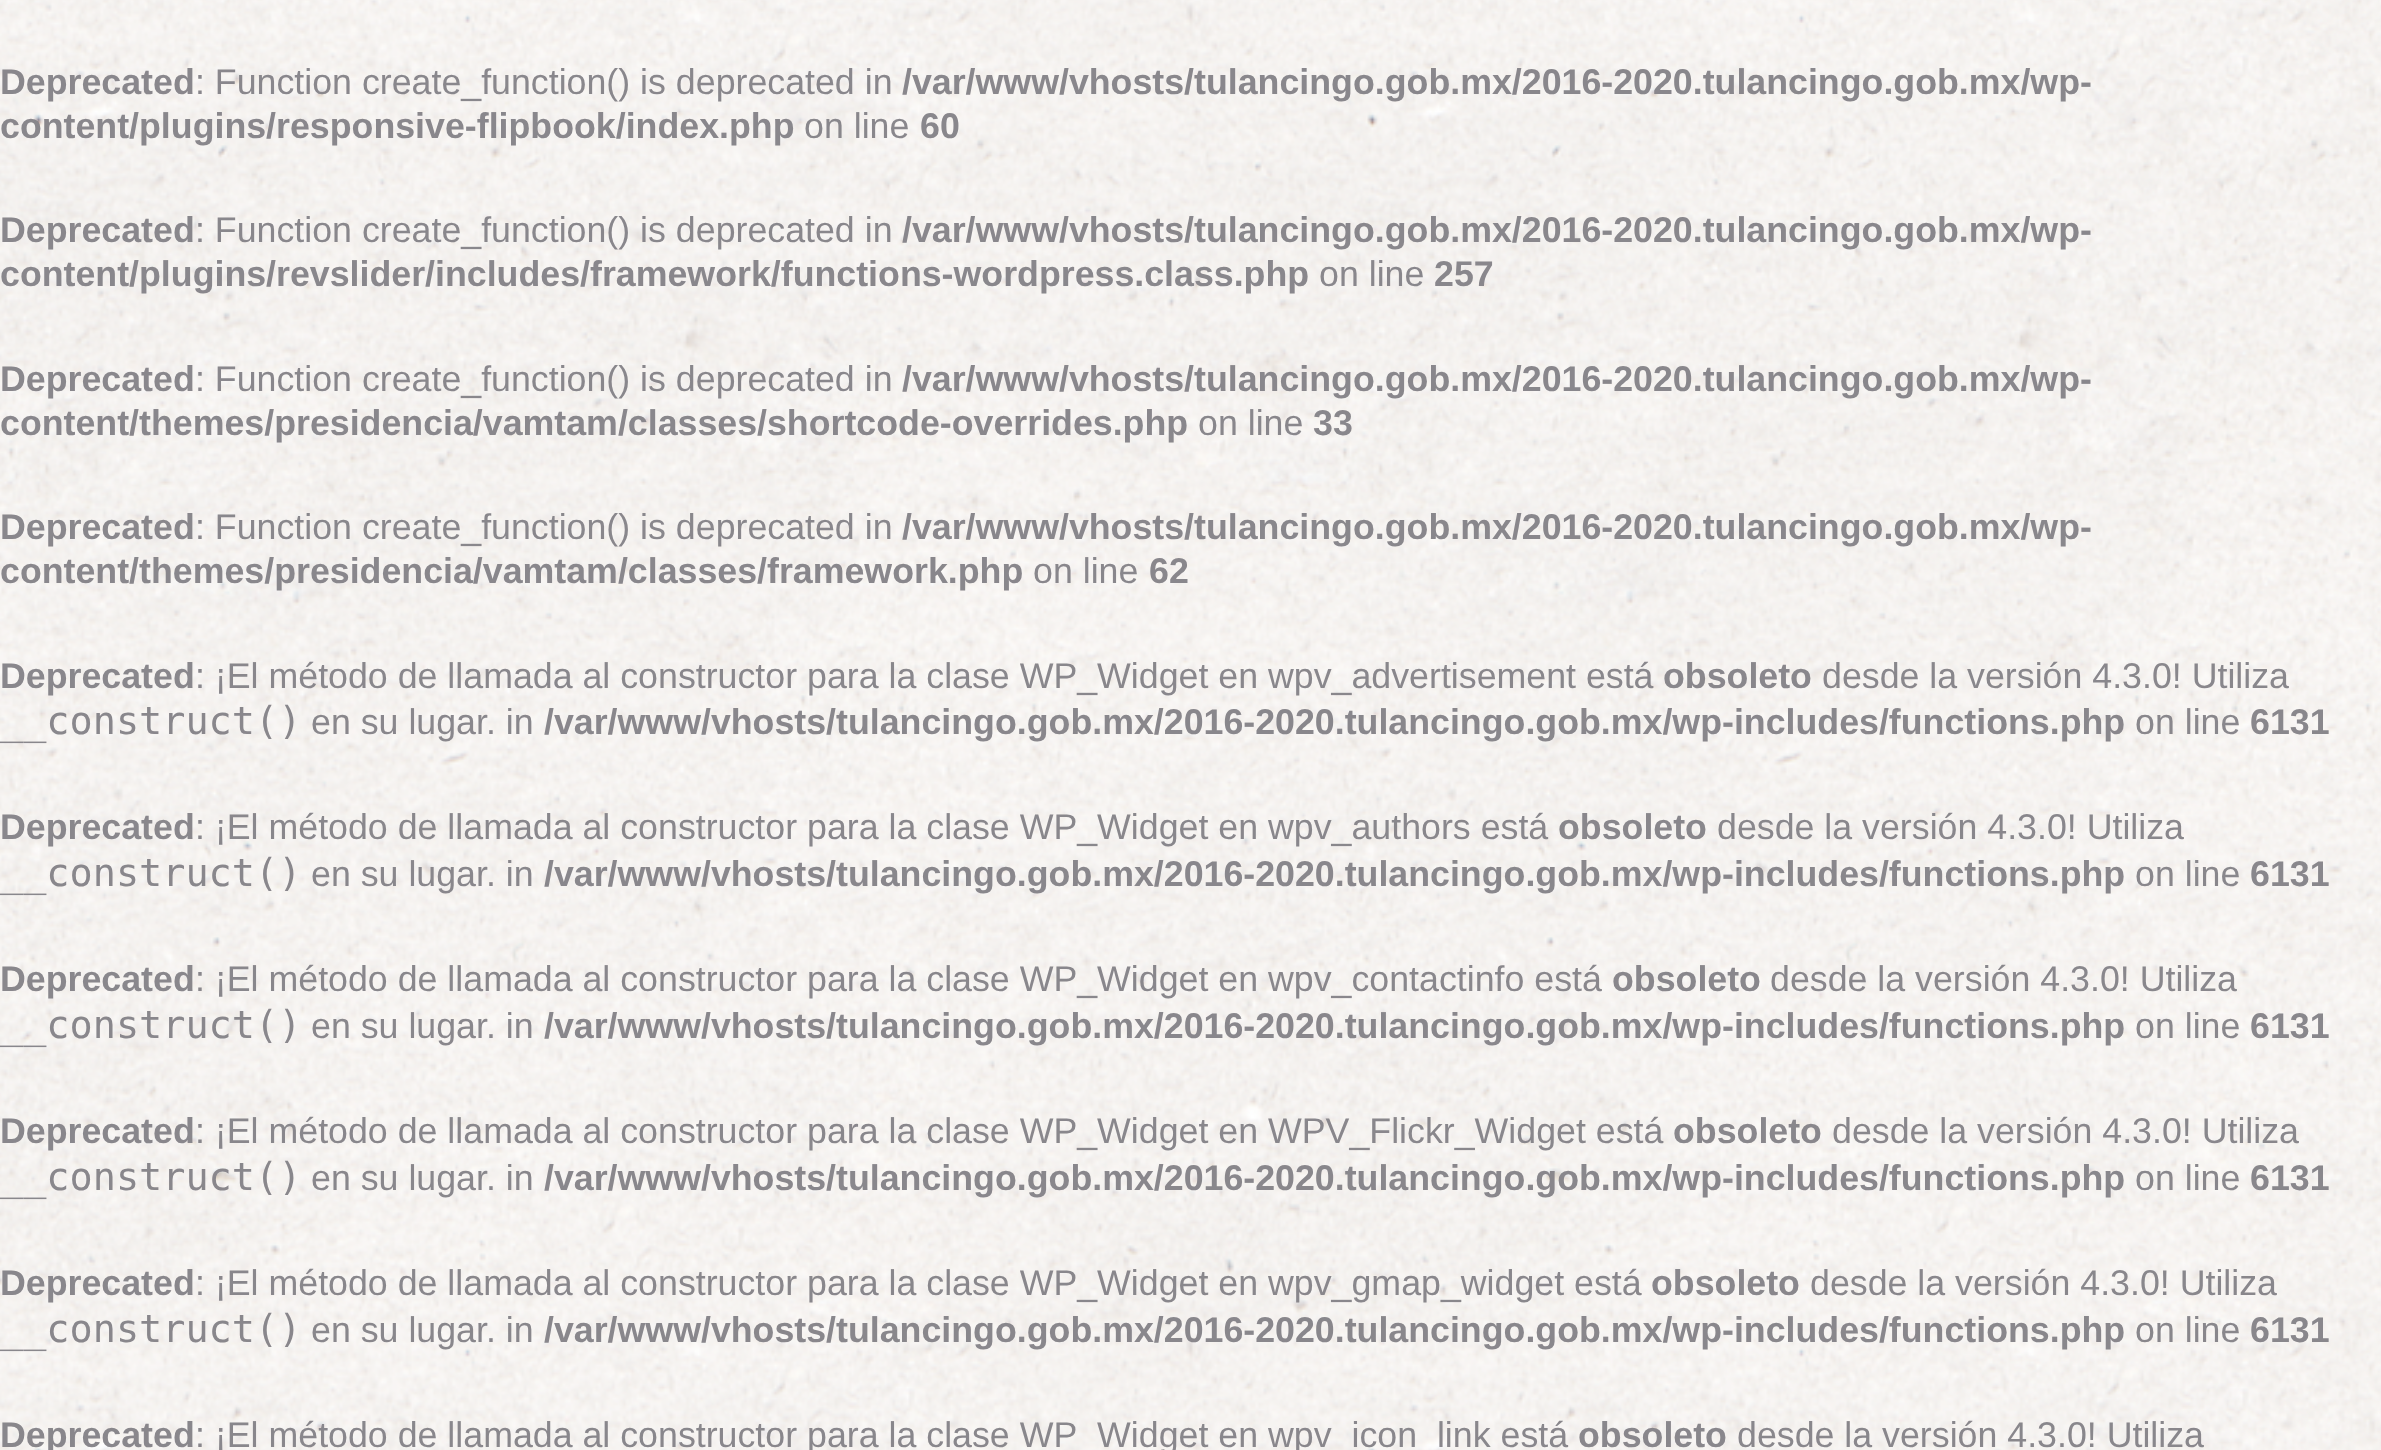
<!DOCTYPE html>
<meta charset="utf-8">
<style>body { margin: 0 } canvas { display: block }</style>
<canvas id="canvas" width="2381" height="1450"></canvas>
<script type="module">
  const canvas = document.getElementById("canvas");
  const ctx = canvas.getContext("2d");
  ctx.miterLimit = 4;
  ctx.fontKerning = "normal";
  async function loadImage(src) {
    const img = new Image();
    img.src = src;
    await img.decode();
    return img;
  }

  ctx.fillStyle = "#ffffff";
  ctx.fillRect(0, 0, 2381, 1450);
  ctx.drawImage(await loadImage("img1.png"), 0, 0, 2381, 1450);
  ctx.font = "bold 35.75px Liberation Sans";
  ctx.fillStyle = "#89878c";
  ctx.fillText("Deprecated", 0, 94);
  ctx.font = "35.75px Liberation Sans";
  ctx.fillText(": Function create_function() is deprecated in", 195, 94);
  ctx.font = "bold 35.75px Liberation Sans";
  ctx.fillText("/var/www/vhosts/tulancingo.gob.mx/2016-2020.tulancingo.gob.mx/wp-", 902, 94);
  ctx.fillText("content/plugins/responsive-flipbook/index.php", 0, 138);
  ctx.font = "35.75px Liberation Sans";
  ctx.fillText("on line", 804, 138);
  ctx.font = "bold 35.75px Liberation Sans";
  ctx.fillText("60", 920, 138);
  ctx.fillText("Deprecated", 0, 242);
  ctx.font = "35.75px Liberation Sans";
  ctx.fillText(": Function create_function() is deprecated in", 195, 242);
  ctx.font = "bold 35.75px Liberation Sans";
  ctx.fillText("/var/www/vhosts/tulancingo.gob.mx/2016-2020.tulancingo.gob.mx/wp-", 902, 242);
  ctx.fillText("content/plugins/revslider/includes/framework/functions-wordpress.class.php", 0, 286);
  ctx.font = "35.75px Liberation Sans";
  ctx.fillText("on line", 1319, 286);
  ctx.font = "bold 35.75px Liberation Sans";
  ctx.fillText("257", 1434, 286);
  ctx.fillText("Deprecated", 0, 391);
  ctx.font = "35.75px Liberation Sans";
  ctx.fillText(": Function create_function() is deprecated in", 195, 391);
  ctx.font = "bold 35.75px Liberation Sans";
  ctx.fillText("/var/www/vhosts/tulancingo.gob.mx/2016-2020.tulancingo.gob.mx/wp-", 902, 391);
  ctx.fillText("content/themes/presidencia/vamtam/classes/shortcode-overrides.php", 0, 435);
  ctx.font = "35.75px Liberation Sans";
  ctx.fillText("on line", 1198, 435);
  ctx.font = "bold 35.75px Liberation Sans";
  ctx.fillText("33", 1313, 435);
  ctx.fillText("Deprecated", 0, 539);
  ctx.font = "35.75px Liberation Sans";
  ctx.fillText(": Function create_function() is deprecated in", 195, 539);
  ctx.font = "bold 35.75px Liberation Sans";
  ctx.fillText("/var/www/vhosts/tulancingo.gob.mx/2016-2020.tulancingo.gob.mx/wp-", 902, 539);
  ctx.fillText("content/themes/presidencia/vamtam/classes/framework.php", 0, 583);
  ctx.font = "35.75px Liberation Sans";
  ctx.fillText("on line", 1033, 583);
  ctx.font = "bold 35.75px Liberation Sans";
  ctx.fillText("62", 1149, 583);
  ctx.fillText("Deprecated", 0, 688);
  ctx.font = "35.75px Liberation Sans";
  ctx.fillText(": ¡El método de llamada al constructor para la clase WP_Widget en wpv_advertisement está", 195, 688);
  ctx.font = "bold 35.75px Liberation Sans";
  ctx.fillText("obsoleto", 1663, 688);
  ctx.font = "35.75px Liberation Sans";
  ctx.fillText("desde la versión 4.3.0! Utiliza", 1822, 688);
  ctx.font = "38.5px DejaVu Sans Mono";
  ctx.fillText("__construct()", 0, 734);
  ctx.font = "35.75px Liberation Sans";
  ctx.fillText("en su lugar. in", 311, 734);
  ctx.font = "bold 35.75px Liberation Sans";
  ctx.fillText("/var/www/vhosts/tulancingo.gob.mx/2016-2020.tulancingo.gob.mx/wp-includes/functions.php", 544, 734);
  ctx.font = "35.75px Liberation Sans";
  ctx.fillText("on line", 2135, 734);
  ctx.font = "bold 35.75px Liberation Sans";
  ctx.fillText("6131", 2250, 734);
  ctx.fillText("Deprecated", 0, 839);
  ctx.font = "35.75px Liberation Sans";
  ctx.fillText(": ¡El método de llamada al constructor para la clase WP_Widget en wpv_authors está", 195, 839);
  ctx.font = "bold 35.75px Liberation Sans";
  ctx.fillText("obsoleto", 1558, 839);
  ctx.font = "35.75px Liberation Sans";
  ctx.fillText("desde la versión 4.3.0! Utiliza", 1717, 839);
  ctx.font = "38.5px DejaVu Sans Mono";
  ctx.fillText("__construct()", 0, 886);
  ctx.font = "35.75px Liberation Sans";
  ctx.fillText("en su lugar. in", 311, 886);
  ctx.font = "bold 35.75px Liberation Sans";
  ctx.fillText("/var/www/vhosts/tulancingo.gob.mx/2016-2020.tulancingo.gob.mx/wp-includes/functions.php", 544, 886);
  ctx.font = "35.75px Liberation Sans";
  ctx.fillText("on line", 2135, 886);
  ctx.font = "bold 35.75px Liberation Sans";
  ctx.fillText("6131", 2250, 886);
  ctx.fillText("Deprecated", 0, 991);
  ctx.font = "35.75px Liberation Sans";
  ctx.fillText(": ¡El método de llamada al constructor para la clase WP_Widget en wpv_contactinfo está", 195, 991);
  ctx.font = "bold 35.75px Liberation Sans";
  ctx.fillText("obsoleto", 1612, 991);
  ctx.font = "35.75px Liberation Sans";
  ctx.fillText("desde la versión 4.3.0! Utiliza", 1770, 991);
  ctx.font = "38.5px DejaVu Sans Mono";
  ctx.fillText("__construct()", 0, 1038);
  ctx.font = "35.75px Liberation Sans";
  ctx.fillText("en su lugar. in", 311, 1038);
  ctx.font = "bold 35.75px Liberation Sans";
  ctx.fillText("/var/www/vhosts/tulancingo.gob.mx/2016-2020.tulancingo.gob.mx/wp-includes/functions.php", 544, 1038);
  ctx.font = "35.75px Liberation Sans";
  ctx.fillText("on line", 2135, 1038);
  ctx.font = "bold 35.75px Liberation Sans";
  ctx.fillText("6131", 2250, 1038);
  ctx.fillText("Deprecated", 0, 1143);
  ctx.font = "35.75px Liberation Sans";
  ctx.fillText(": ¡El método de llamada al constructor para la clase WP_Widget en WPV_Flickr_Widget está", 195, 1143);
  ctx.font = "bold 35.75px Liberation Sans";
  ctx.fillText("obsoleto", 1673, 1143);
  ctx.font = "35.75px Liberation Sans";
  ctx.fillText("desde la versión 4.3.0! Utiliza", 1832, 1143);
  ctx.font = "38.5px DejaVu Sans Mono";
  ctx.fillText("__construct()", 0, 1190);
  ctx.font = "35.75px Liberation Sans";
  ctx.fillText("en su lugar. in", 311, 1190);
  ctx.font = "bold 35.75px Liberation Sans";
  ctx.fillText("/var/www/vhosts/tulancingo.gob.mx/2016-2020.tulancingo.gob.mx/wp-includes/functions.php", 544, 1190);
  ctx.font = "35.75px Liberation Sans";
  ctx.fillText("on line", 2135, 1190);
  ctx.font = "bold 35.75px Liberation Sans";
  ctx.fillText("6131", 2250, 1190);
  ctx.fillText("Deprecated", 0, 1295);
  ctx.font = "35.75px Liberation Sans";
  ctx.fillText(": ¡El método de llamada al constructor para la clase WP_Widget en wpv_gmap_widget está", 195, 1295);
  ctx.font = "bold 35.75px Liberation Sans";
  ctx.fillText("obsoleto", 1651, 1295);
  ctx.font = "35.75px Liberation Sans";
  ctx.fillText("desde la versión 4.3.0! Utiliza", 1810, 1295);
  ctx.font = "38.5px DejaVu Sans Mono";
  ctx.fillText("__construct()", 0, 1342);
  ctx.font = "35.75px Liberation Sans";
  ctx.fillText("en su lugar. in", 311, 1342);
  ctx.font = "bold 35.75px Liberation Sans";
  ctx.fillText("/var/www/vhosts/tulancingo.gob.mx/2016-2020.tulancingo.gob.mx/wp-includes/functions.php", 544, 1342);
  ctx.font = "35.75px Liberation Sans";
  ctx.fillText("on line", 2135, 1342);
  ctx.font = "bold 35.75px Liberation Sans";
  ctx.fillText("6131", 2250, 1342);
  ctx.fillText("Deprecated", 0, 1447);
  ctx.font = "35.75px Liberation Sans";
  ctx.fillText(": ¡El método de llamada al constructor para la clase WP_Widget en wpv_icon_link está", 195, 1447);
  ctx.font = "bold 35.75px Liberation Sans";
  ctx.fillText("obsoleto", 1578, 1447);
  ctx.font = "35.75px Liberation Sans";
  ctx.fillText("desde la versión 4.3.0! Utiliza", 1737, 1447);
</script>
